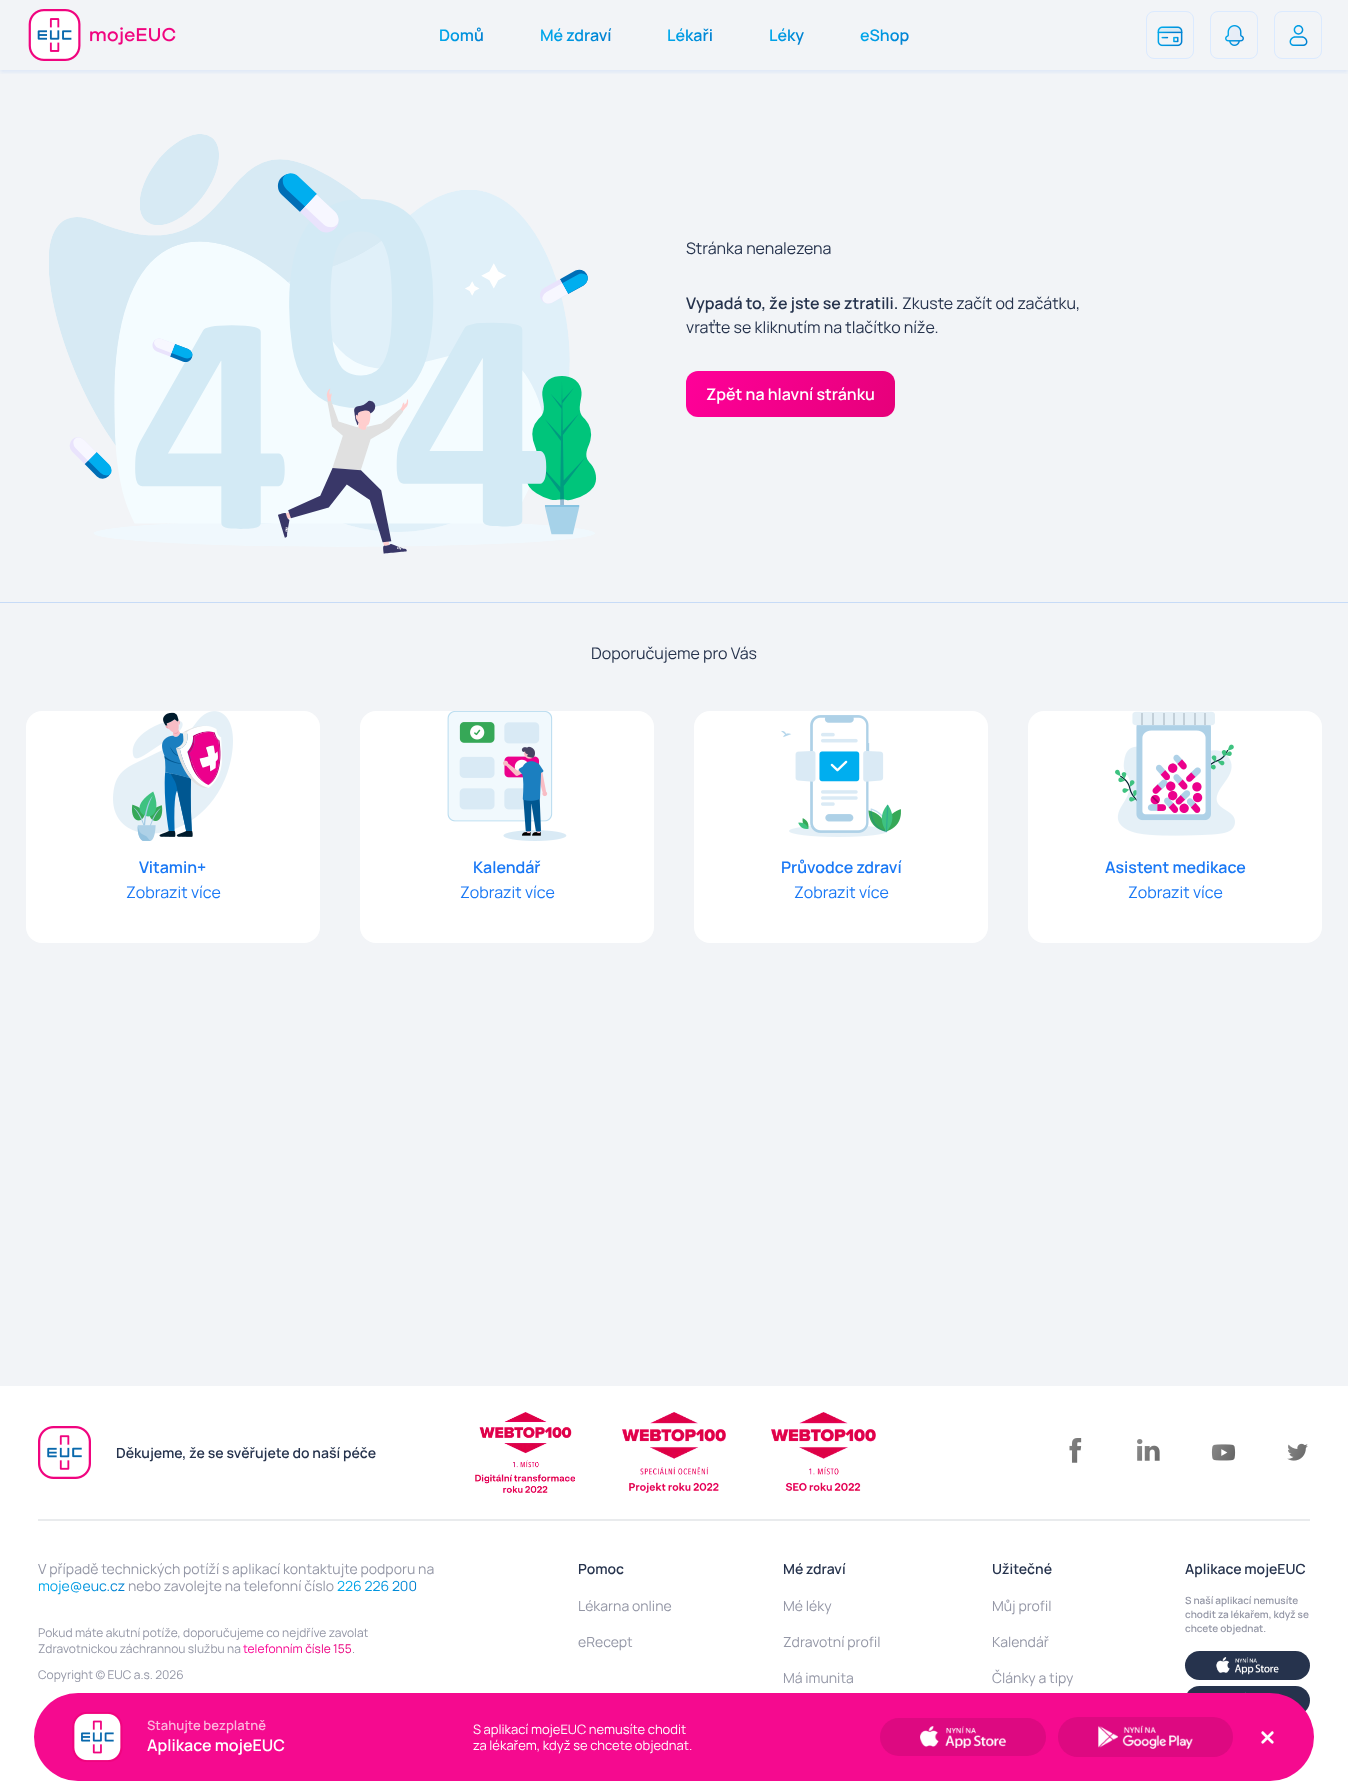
<!DOCTYPE html>
<meta charset="utf-8">
<style>body { margin: 0 } canvas { display: block }</style>
<canvas id="canvas" width="1348" height="1781"></canvas>
<script type="module">
  const canvas = document.getElementById("canvas");
  const ctx = canvas.getContext("2d");
  ctx.miterLimit = 4;
  ctx.fontKerning = "normal";
  async function loadImage(src) {
    const img = new Image();
    img.src = src;
    await img.decode();
    return img;
  }
  let gradient;

  ctx.fillStyle = "#f2f4f7";
  ctx.fillRect(0, 0, 1348, 1781);
  ctx.save();
  ctx.beginPath();
  ctx.rect(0, 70, 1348, 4);
  ctx.clip();
  ctx.fillStyle = "rgba(25, 120, 245, 0.1)";
  ctx.filter = "blur(2px)";
  ctx.beginPath();
  ctx.rect(0, 2, 1348, 70);
  ctx.fill();
  ctx.filter = "none";
  ctx.restore();
  ctx.drawImage(await loadImage("img1.png"), 28, 9, 148, 52);
  ctx.font = "600 16px Manrope";
  gradient = ctx.createLinearGradient(438, 25, 484, 45);
  gradient.addColorStop(0, "#00aeef");
  gradient.addColorStop(1, "#007dcf");
  ctx.fillStyle = gradient;
  ctx.fillText("Domů", 439, 41);
  gradient = ctx.createLinearGradient(541, 20, 609, 50);
  gradient.addColorStop(0, "#00aeef");
  gradient.addColorStop(1, "#007dcf");
  ctx.fillStyle = gradient;
  ctx.fillText("Mé zdraví", 540, 41);
  gradient = ctx.createLinearGradient(667, 25, 713, 45);
  gradient.addColorStop(0, "#00aeef");
  gradient.addColorStop(1, "#007dcf");
  ctx.fillStyle = gradient;
  ctx.fillText("Lékaři", 667, 41);
  gradient = ctx.createLinearGradient(768, 27, 805, 43);
  gradient.addColorStop(0, "#00aeef");
  gradient.addColorStop(1, "#007dcf");
  ctx.fillStyle = gradient;
  ctx.fillText("Léky", 769, 41);
  gradient = ctx.createLinearGradient(860, 24, 909, 46);
  gradient.addColorStop(0, "#00aeef");
  gradient.addColorStop(1, "#007dcf");
  ctx.fillStyle = gradient;
  ctx.fillText("eShop", 860, 41);
  ctx.beginPath();
  ctx.roundRect(1146.5, 11.5, 47, 47, 7.5);
  ctx.strokeStyle = "#dbeaff";
  ctx.stroke();
  ctx.drawImage(await loadImage("img2.png"), 1157, 26, 26, 21);
  ctx.beginPath();
  ctx.roundRect(1210.5, 11.5, 47, 47, 7.5);
  ctx.stroke();
  ctx.drawImage(await loadImage("img3.png"), 1225, 25, 19, 21);
  ctx.beginPath();
  ctx.roundRect(1274.5, 11.5, 47, 47, 7.5);
  ctx.stroke();
  ctx.drawImage(await loadImage("img4.png"), 1289, 25, 19, 21);
  ctx.drawImage(await loadImage("img5.png"), 49, 134, 548, 420);
  ctx.font = "16px Manrope";
  ctx.fillStyle = "#26334d";
  ctx.fillText("Stránka nenalezena", 686, 254);
  ctx.font = "600 16px Manrope";
  ctx.fillText("Vypadá to, že jste se ztratili.", 686, 309);
  ctx.font = "16px Manrope";
  ctx.fillText("Zkuste začít od začátku,", 902, 309);
  ctx.fillText("vraťte se kliknutím na tlačítko níže.", 686, 333);
  gradient = ctx.createLinearGradient(698, 347, 883, 441);
  gradient.addColorStop(0, "#ff0099");
  gradient.addColorStop(1, "#e6007a");
  ctx.fillStyle = gradient;
  ctx.beginPath();
  ctx.roundRect(686, 371, 209, 46, 12);
  ctx.fill();
  ctx.font = "600 16px Manrope";
  ctx.fillStyle = "#ffffff";
  ctx.fillText("Zpět na hlavní stránku", 706, 400);
  ctx.fillStyle = "#c7dbf7";
  ctx.fillRect(0, 602, 1348, 1);
  ctx.font = "16px Manrope";
  ctx.fillStyle = "#26334d";
  ctx.fillText("Doporučujeme pro Vás", 591, 659);
  ctx.fillStyle = "#ffffff";
  ctx.beginPath();
  ctx.roundRect(26, 711, 294, 232, 16);
  ctx.fill();
  ctx.drawImage(await loadImage("img6.png"), 113, 711, 120, 130);
  ctx.font = "600 16px Manrope";
  ctx.fillStyle = "#1978f5";
  ctx.fillText("Vitamin+", 139, 873);
  ctx.font = "16px Manrope";
  ctx.fillText("Zobrazit více", 126, 898);
  ctx.fillStyle = "#ffffff";
  ctx.beginPath();
  ctx.roundRect(360, 711, 294, 232, 16);
  ctx.fill();
  ctx.drawImage(await loadImage("img7.png"), 447, 711, 120, 130);
  ctx.font = "600 16px Manrope";
  ctx.fillStyle = "#1978f5";
  ctx.fillText("Kalendář", 473, 873);
  ctx.font = "16px Manrope";
  ctx.fillText("Zobrazit více", 460, 898);
  ctx.fillStyle = "#ffffff";
  ctx.beginPath();
  ctx.roundRect(694, 711, 294, 232, 16);
  ctx.fill();
  ctx.drawImage(await loadImage("img8.png"), 781, 715, 120, 122);
  ctx.font = "600 16px Manrope";
  ctx.fillStyle = "#1978f5";
  ctx.fillText("Průvodce zdraví", 781, 873);
  ctx.font = "16px Manrope";
  ctx.fillText("Zobrazit více", 794, 898);
  ctx.fillStyle = "#ffffff";
  ctx.beginPath();
  ctx.roundRect(1028, 711, 294, 232, 16);
  ctx.fill();
  ctx.drawImage(await loadImage("img9.png"), 1115, 711, 120, 125);
  ctx.font = "600 16px Manrope";
  ctx.fillStyle = "#1978f5";
  ctx.fillText("Asistent medikace", 1105, 873);
  ctx.font = "16px Manrope";
  ctx.fillText("Zobrazit více", 1128, 898);
  ctx.fillStyle = "#ffffff";
  ctx.fillRect(0, 1386, 1348, 395);
  ctx.drawImage(await loadImage("img10.png"), 38, 1426, 53, 53);
  ctx.font = "600 14px Manrope";
  ctx.fillStyle = "#26334d";
  ctx.fillText("Děkujeme, že se svěřujete do naší péče", 116, 1458);
  ctx.drawImage(await loadImage("img11.png"), 475, 1412, 100, 81);
  ctx.drawImage(await loadImage("img12.png"), 622, 1412, 104, 81);
  ctx.drawImage(await loadImage("img13.png"), 771, 1412, 105, 80);
  ctx.drawImage(await loadImage("img14.png"), 1069, 1438, 13, 25);
  ctx.drawImage(await loadImage("img15.png"), 1137, 1439, 23, 22);
  ctx.drawImage(await loadImage("img16.png"), 1211, 1444, 25, 17);
  ctx.drawImage(await loadImage("img17.png"), 1287, 1443, 21, 18);
  ctx.fillStyle = "#e9ebed";
  ctx.fillRect(38, 1519, 1272, 2);
  ctx.font = "14px Manrope";
  ctx.fillStyle = "#9497a6";
  ctx.fillText("V případě technických potíží s aplikací kontaktujte podporu na", 38, 1574);
  gradient = ctx.createLinearGradient(42, 1568, 121, 1603);
  gradient.addColorStop(0, "#00aeef");
  gradient.addColorStop(1, "#007dcf");
  ctx.fillStyle = gradient;
  ctx.fillText("moje@euc.cz", 38, 1591);
  ctx.fillStyle = "#9497a6";
  ctx.fillText("nebo zavolejte na telefonní číslo", 128, 1591);
  gradient = ctx.createLinearGradient(340, 1569, 414, 1602);
  gradient.addColorStop(0, "#00aeef");
  gradient.addColorStop(1, "#007dcf");
  ctx.fillStyle = gradient;
  ctx.fillText("226 226 200", 337, 1591);
  ctx.font = "12px Manrope";
  ctx.fillStyle = "#9497a6";
  ctx.fillText("Pokud máte akutní potíže, doporučujeme co nejdříve zavolat", 38, 1637);
  ctx.fillText("Zdravotnickou záchrannou službu na", 38, 1653);
  gradient = ctx.createLinearGradient(251, 1625, 344, 1672);
  gradient.addColorStop(0, "#ff0099");
  gradient.addColorStop(1, "#e6007a");
  ctx.fillStyle = gradient;
  ctx.fillText("telefonním čísle 155", 243, 1653);
  ctx.fillStyle = "#9497a6";
  ctx.fillText(".", 352, 1653);
  ctx.fillText("Copyright © EUC a.s. 2026", 38, 1679);
  ctx.font = "600 14px Manrope";
  ctx.fillStyle = "#26334d";
  ctx.fillText("Pomoc", 578, 1574);
  ctx.font = "14px Manrope";
  ctx.fillStyle = "#9497a6";
  ctx.fillText("Lékarna online", 578, 1611);
  ctx.fillText("eRecept", 578, 1647);
  ctx.font = "600 14px Manrope";
  ctx.fillStyle = "#26334d";
  ctx.fillText("Mé zdraví", 783, 1574);
  ctx.font = "14px Manrope";
  ctx.fillStyle = "#9497a6";
  ctx.fillText("Mé léky", 783, 1611);
  ctx.fillText("Zdravotní profil", 783, 1647);
  ctx.fillText("Má imunita", 783, 1683);
  ctx.font = "600 14px Manrope";
  ctx.fillStyle = "#26334d";
  ctx.fillText("Užitečné", 992, 1574);
  ctx.font = "14px Manrope";
  ctx.fillStyle = "#9497a6";
  ctx.fillText("Můj profil", 992, 1611);
  ctx.fillText("Kalendář", 992, 1647);
  ctx.fillText("Články a tipy", 992, 1683);
  ctx.font = "600 14px Manrope";
  ctx.fillStyle = "#26334d";
  ctx.fillText("Aplikace mojeEUC", 1185, 1574);
  ctx.font = "600 10px Manrope";
  ctx.fillStyle = "#9497a6";
  ctx.fillText("S naší aplikací nemusíte", 1185, 1604);
  ctx.fillText("chodit za lékařem, když se", 1185, 1618);
  ctx.fillText("chcete objednat.", 1185, 1632);
  ctx.fillStyle = "#26334d";
  ctx.beginPath();
  ctx.roundRect(1185, 1651, 125, 29, 14.5);
  ctx.fill();
  ctx.drawImage(await loadImage("img18.png"), 1216, 1657, 63, 18);
  ctx.beginPath();
  ctx.roundRect(1185, 1686, 125, 29, 14.5);
  ctx.fill();
  ctx.drawImage(await loadImage("img19.png"), 1245, 1692, 1, 1);
  ctx.fillStyle = "#f50a8f";
  ctx.beginPath();
  ctx.roundRect(34, 1693, 1280, 88, 44);
  ctx.fill();
  ctx.drawImage(await loadImage("img20.png"), 72, 1712, 51, 50);
  ctx.font = "600 13px Manrope";
  ctx.fillStyle = "#fcb6dd";
  ctx.fillText("Stahujte bezplatně", 147, 1730);
  ctx.font = "600 16px Manrope";
  ctx.fillStyle = "#ffffff";
  ctx.fillText("Aplikace mojeEUC", 147, 1751);
  ctx.font = "13px Manrope";
  ctx.fillText("S aplikací mojeEUC nemusíte chodit", 473, 1734);
  ctx.fillText("za lékařem, když se chcete objednat.", 473, 1750);
  ctx.fillStyle = "#dd0981";
  ctx.beginPath();
  ctx.roundRect(880, 1718, 166, 38, 19);
  ctx.fill();
  ctx.drawImage(await loadImage("img21.png"), 920, 1726, 86, 22);
  ctx.beginPath();
  ctx.roundRect(1058, 1717, 175, 40, 20);
  ctx.fill();
  ctx.drawImage(await loadImage("img22.png"), 1098, 1725, 95, 24);
  ctx.drawImage(await loadImage("img23.png"), 1261, 1731, 13, 13);
</script>
